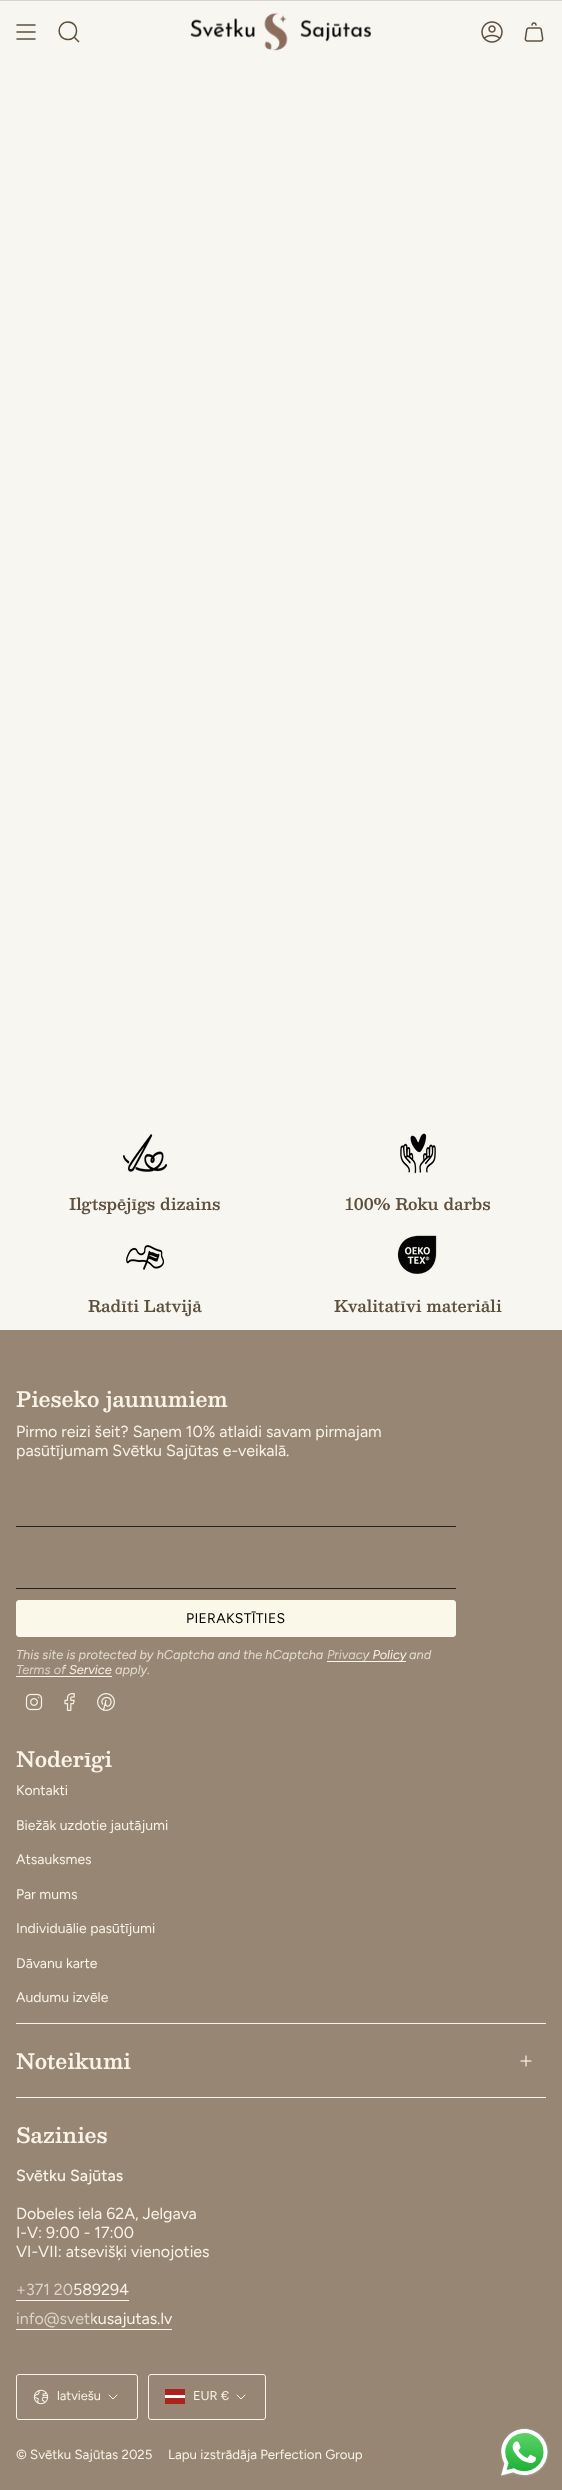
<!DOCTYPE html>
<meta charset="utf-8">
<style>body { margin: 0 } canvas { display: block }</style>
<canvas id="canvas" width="562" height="2490"></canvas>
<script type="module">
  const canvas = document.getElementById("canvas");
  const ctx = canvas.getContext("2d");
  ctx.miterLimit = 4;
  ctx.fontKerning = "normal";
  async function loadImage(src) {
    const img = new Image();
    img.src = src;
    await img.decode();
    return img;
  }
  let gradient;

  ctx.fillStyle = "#f7f6f1";
  ctx.fillRect(0, 0, 562, 2490);
  ctx.fillStyle = "#d8d5cd";
  ctx.fillRect(0, 0, 562, 1);
  ctx.beginPath();
  ctx.moveTo(17, 25);
  ctx.lineTo(35, 25);
  ctx.moveTo(17, 32);
  ctx.lineTo(35, 32);
  ctx.moveTo(17, 39);
  ctx.lineTo(35, 39);
  ctx.strokeStyle = "#5d4f3d";
  ctx.lineWidth = 1.5;
  ctx.lineCap = "round";
  ctx.lineJoin = "round";
  ctx.stroke();
  ctx.beginPath();
  ctx.moveTo(68, 22);
  ctx.bezierCurveTo(79.5, 22, 79.5, 40, 67.5, 39.5);
  ctx.bezierCurveTo(56, 39, 56.5, 22, 68, 22);
  ctx.closePath();
  ctx.moveTo(74, 37);
  ctx.lineTo(79, 42);
  ctx.lineCap = "butt";
  ctx.lineJoin = "miter";
  ctx.stroke();
  ctx.drawImage(await loadImage("img1.png"), 190, 13, 181, 38);
  ctx.drawImage(await loadImage("img2.png"), 481, 21, 22, 22);
  ctx.drawImage(await loadImage("img3.png"), 524, 22, 20, 20);
  ctx.drawImage(await loadImage("img4.png"), 122, 1134, 46, 38);
  ctx.font = "600 16px Besley";
  ctx.fillStyle = "#5d4f3d";
  ctx.fillText("Ilgtspējīgs dizains", 69, 1210);
  ctx.drawImage(await loadImage("img5.png"), 400, 1133, 36, 41);
  ctx.fillText("100% Roku darbs", 345, 1210);
  ctx.drawImage(await loadImage("img6.png"), 126, 1245, 39, 25);
  ctx.fillText("Radīti Latvijā", 88, 1312);
  ctx.drawImage(await loadImage("img7.png"), 397, 1235, 40, 39);
  ctx.fillText("Kvalitatīvi materiāli", 334, 1312);
  ctx.fillStyle = "#968673";
  ctx.fillRect(0, 1330, 562, 1160);
  ctx.font = "600 21px Besley";
  ctx.fillStyle = "#faf3e8";
  ctx.fillText("Pieseko jaunumiem", 16, 1407);
  ctx.font = "300 16px Figtree";
  ctx.fillText("Pirmo reizi šeit? Saņem 10% atlaidi savam pirmajam", 16, 1437);
  ctx.fillText("pasūtījumam Svētku Sajūtas e-veikalā.", 16, 1456);
  ctx.fillStyle = "#212121";
  ctx.fillRect(16, 1526, 440, 1);
  ctx.fillRect(16, 1588, 440, 1);
  ctx.fillStyle = "#faf8e8";
  ctx.beginPath();
  ctx.roundRect(16.5, 1600.5, 439, 36, 2.5);
  ctx.fill();
  ctx.strokeStyle = "#faf8e8";
  ctx.lineWidth = 1;
  ctx.stroke();
  ctx.letterSpacing = "0.3px";
  ctx.font = "300 14px Figtree";
  ctx.fillStyle = "#000000";
  ctx.fillText("PIERAKSTĪTIES", 186, 1623);
  ctx.letterSpacing = "0px";
  ctx.font = "italic 12.8px Figtree";
  ctx.fillStyle = "#e6ddd1";
  ctx.fillText("This site is protected by hCaptcha and the hCaptcha", 16, 1659);
  gradient = ctx.createLinearGradient(327, 1655, 406, 1655);
  gradient.addColorStop(0, "#dcd2c5");
  gradient.addColorStop(0.5, "#dcd2c5");
  gradient.addColorStop(0.5, "#faf3e8");
  gradient.addColorStop(1, "#faf3e8");
  ctx.fillStyle = gradient;
  ctx.fillText("Privacy Policy", 327, 1659);
  ctx.fillStyle = "#faf3e8";
  ctx.fillRect(327, 1661, 79, 1);
  ctx.fillStyle = "#e6ddd1";
  ctx.fillText("and", 409, 1659);
  gradient = ctx.createLinearGradient(16, 1670, 112, 1670);
  gradient.addColorStop(0, "#dcd2c5");
  gradient.addColorStop(0.5, "#dcd2c5");
  gradient.addColorStop(0.5, "#faf3e8");
  gradient.addColorStop(1, "#faf3e8");
  ctx.fillStyle = gradient;
  ctx.fillText("Terms of Service", 16, 1674);
  ctx.fillStyle = "#faf3e8";
  ctx.fillRect(16, 1676, 96, 1);
  ctx.fillStyle = "#e6ddd1";
  ctx.fillText("apply.", 115, 1674);
  ctx.drawImage(await loadImage("img8.png"), 25, 1693, 18, 18);
  ctx.drawImage(await loadImage("img9.png"), 64, 1693, 11, 18);
  ctx.drawImage(await loadImage("img10.png"), 97, 1693, 18, 18);
  ctx.font = "600 21px Besley";
  ctx.fillStyle = "#faf3e8";
  ctx.fillText("Noderīgi", 16, 1767);
  ctx.font = "300 14px Figtree";
  ctx.fillText("Kontakti", 16, 1795);
  ctx.fillText("Biežāk uzdotie jautājumi", 16, 1830);
  ctx.fillText("Atsauksmes", 16, 1864);
  ctx.fillText("Par mums", 16, 1899);
  ctx.fillText("Individuālie pasūtījumi", 16, 1933);
  ctx.fillText("Dāvanu karte", 16, 1968);
  ctx.fillText("Audumu izvēle", 16, 2002);
  ctx.fillRect(16, 2023, 530, 1);
  ctx.fillRect(16, 2097, 530, 1);
  ctx.font = "600 21px Besley";
  ctx.fillText("Noteikumi", 16, 2069);
  ctx.drawImage(await loadImage("img11.png"), 520, 2055, 12, 12);
  ctx.fillText("Sazinies", 16, 2143);
  ctx.font = "500 16px Figtree";
  ctx.fillText("Svētku Sajūtas", 16, 2181);
  ctx.font = "300 16px Figtree";
  ctx.fillText("Dobeles iela 62A, Jelgava", 16, 2219);
  ctx.fillText("I-V: 9:00 - 17:00", 16, 2238);
  ctx.fillText("VI-VII: atsevišķi vienojoties", 16, 2257);
  gradient = ctx.createLinearGradient(16, 2290, 129, 2290);
  gradient.addColorStop(0, "#dcd2c5");
  gradient.addColorStop(0.5, "#dcd2c5");
  gradient.addColorStop(0.5, "#faf3e8");
  gradient.addColorStop(1, "#faf3e8");
  ctx.fillStyle = gradient;
  ctx.fillText("+371 20589294", 16, 2295);
  ctx.fillStyle = "#faf3e8";
  ctx.fillRect(16, 2300, 113, 1);
  gradient = ctx.createLinearGradient(16, 2319, 172, 2319);
  gradient.addColorStop(0, "#dcd2c5");
  gradient.addColorStop(0.5, "#dcd2c5");
  gradient.addColorStop(0.5, "#faf3e8");
  gradient.addColorStop(1, "#faf3e8");
  ctx.fillStyle = gradient;
  ctx.fillText("info@svetkusajutas.lv", 16, 2324);
  ctx.fillStyle = "#faf3e8";
  ctx.fillRect(16, 2329, 156, 1);
  ctx.beginPath();
  ctx.roundRect(16.5, 2374.5, 121, 45, 2.5);
  ctx.strokeStyle = "#faf3e8";
  ctx.stroke();
  ctx.drawImage(await loadImage("img12.png"), 33, 2389, 16, 16);
  ctx.font = "300 12.8px Figtree";
  ctx.fillText("latviešu", 57, 2400);
  ctx.beginPath();
  ctx.moveTo(109, 2395);
  ctx.lineTo(113, 2399);
  ctx.lineTo(117, 2395);
  ctx.lineCap = "round";
  ctx.lineJoin = "round";
  ctx.stroke();
  ctx.beginPath();
  ctx.roundRect(148.5, 2374.5, 117, 45, 2.5);
  ctx.lineJoin = "miter";
  ctx.stroke();
  ctx.drawImage(await loadImage("img13.png"), 165, 2389, 20, 15);
  ctx.fillText("EUR €", 193, 2400);
  ctx.beginPath();
  ctx.moveTo(237, 2395);
  ctx.lineTo(241, 2399);
  ctx.lineTo(245, 2395);
  ctx.lineJoin = "round";
  ctx.stroke();
  ctx.font = "300 13.25px Figtree";
  ctx.fillText("© Svētku Sajūtas 2025", 16, 2459);
  ctx.fillText("Lapu izstrādāja Perfection Group", 168, 2459);
  ctx.drawImage(await loadImage("img14.png"), 500, 2428, 49, 49);
</script>
